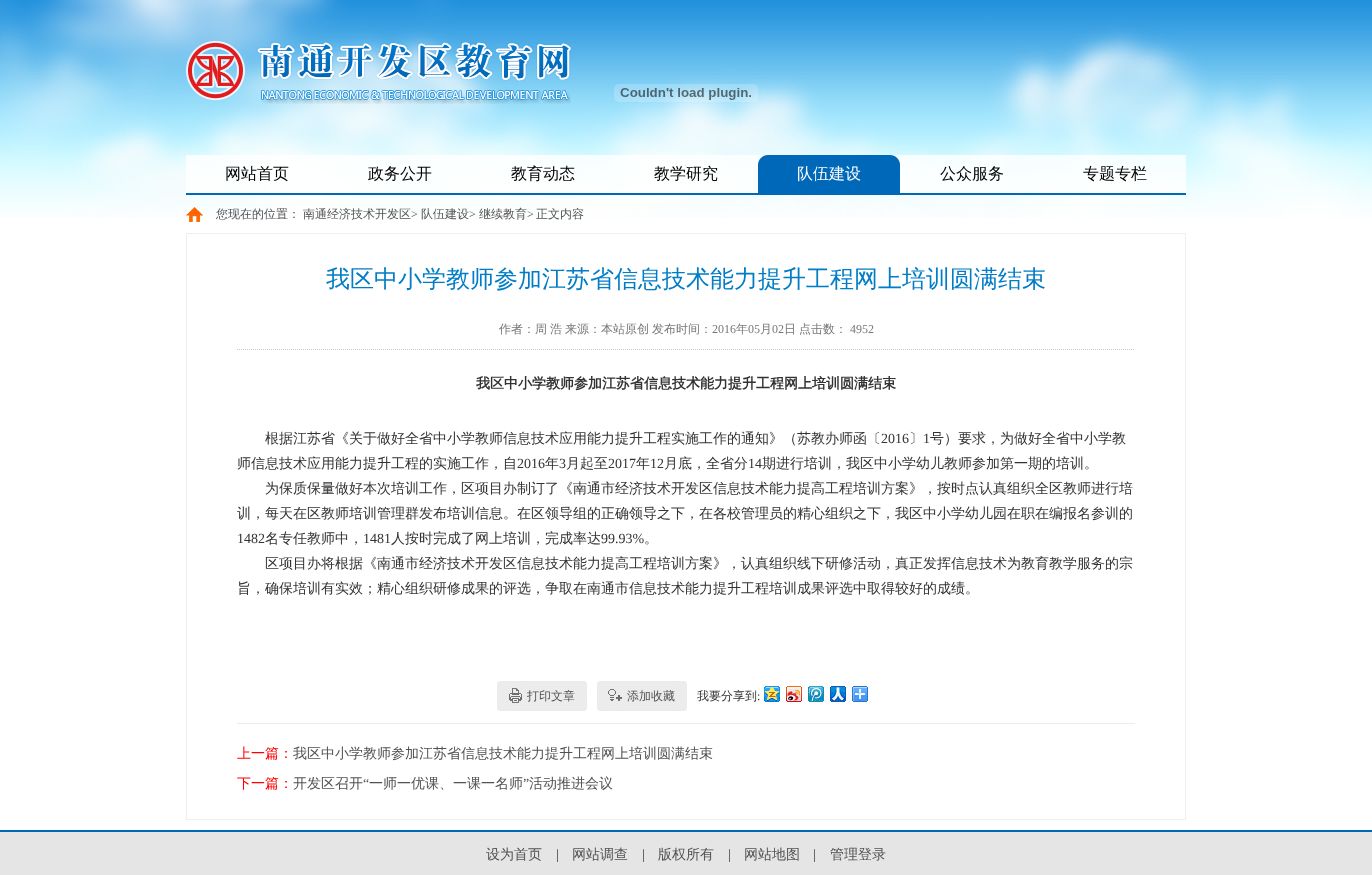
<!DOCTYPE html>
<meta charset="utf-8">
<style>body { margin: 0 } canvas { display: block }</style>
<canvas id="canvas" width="1372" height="875"></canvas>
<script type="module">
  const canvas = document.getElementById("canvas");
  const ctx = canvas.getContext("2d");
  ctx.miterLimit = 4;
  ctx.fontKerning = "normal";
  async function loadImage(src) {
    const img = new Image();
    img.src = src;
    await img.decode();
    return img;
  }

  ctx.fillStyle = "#ffffff";
  ctx.fillRect(0, 0, 1372, 875);
  ctx.drawImage(await loadImage("img1.png"), 0, 0, 1372, 218);
  ctx.drawImage(await loadImage("img2.png"), 186, 40, 385, 64);
  ctx.drawImage(await loadImage("img3.png"), 614, 84, 144, 18);
  ctx.fillStyle = "rgba(255, 255, 255, 0.8)";
  ctx.fillRect(186, 155, 1000, 38);
  ctx.fillStyle = "#0068b7";
  ctx.fillRect(186, 193, 1000, 2);
  ctx.font = "500 16px WenQuanYi Zen Hei";
  ctx.fillStyle = "#000000";
  ctx.fillText("网站首页", 225, 179);
  ctx.fillText("政务公开", 368, 179);
  ctx.fillText("教育动态", 511, 179);
  ctx.fillText("教学研究", 654, 179);
  ctx.drawImage(await loadImage("img4.png"), 758, 155, 142, 38);
  ctx.fillStyle = "#ffffff";
  ctx.fillText("队伍建设", 797, 179);
  ctx.fillStyle = "#000000";
  ctx.fillText("公众服务", 940, 179);
  ctx.fillText("专题专栏", 1083, 179);
  ctx.drawImage(await loadImage("img5.png"), 186, 207, 17, 15);
  ctx.font = "500 12px WenQuanYi Zen Hei";
  ctx.fillStyle = "#525252";
  ctx.fillText("您现在的位置：", 216, 218);
  ctx.fillText("南通经济技术开发区", 303, 218);
  ctx.font = "12px Liberation Serif";
  ctx.fillText(">", 411, 218);
  ctx.font = "500 12px WenQuanYi Zen Hei";
  ctx.fillText("队伍建设", 421, 218);
  ctx.font = "12px Liberation Serif";
  ctx.fillText(">", 469, 218);
  ctx.font = "500 12px WenQuanYi Zen Hei";
  ctx.fillText("继续教育", 479, 218);
  ctx.font = "12px Liberation Serif";
  ctx.fillText(">", 527, 218);
  ctx.font = "500 12px WenQuanYi Zen Hei";
  ctx.fillText("正文内容", 536, 218);
  ctx.strokeStyle = "#efefef";
  ctx.strokeRect(186.5, 233.5, 999, 586);
  ctx.font = "500 24px WenQuanYi Zen Hei";
  ctx.fillStyle = "#007dc6";
  ctx.fillText("我区中小学教师参加江苏省信息技术能力提升工程网上培训圆满结束", 326, 287);
  ctx.beginPath();
  ctx.moveTo(237, 349.5);
  ctx.lineTo(1135, 349.5);
  ctx.strokeStyle = "#c8c8c8";
  ctx.setLineDash([1, 1]);
  ctx.stroke();
  ctx.font = "500 12px WenQuanYi Zen Hei";
  ctx.fillStyle = "#777777";
  ctx.fillText("作者：周", 499, 333);
  ctx.fillText("浩", 550, 333);
  ctx.fillText("来源：本站原创", 565, 333);
  ctx.fillText("发布时间：", 652, 333);
  ctx.font = "12px Liberation Serif";
  ctx.fillText("2016", 712, 333);
  ctx.font = "500 12px WenQuanYi Zen Hei";
  ctx.fillText("年", 736, 333);
  ctx.font = "12px Liberation Serif";
  ctx.fillText("05", 748, 333);
  ctx.font = "500 12px WenQuanYi Zen Hei";
  ctx.fillText("月", 760, 333);
  ctx.font = "12px Liberation Serif";
  ctx.fillText("02", 772, 333);
  ctx.font = "500 12px WenQuanYi Zen Hei";
  ctx.fillText("日", 784, 333);
  ctx.fillText("点击数：", 799, 333);
  ctx.font = "12px Liberation Serif";
  ctx.fillText("4952", 850, 333);
  ctx.font = "bold 14px WenQuanYi Zen Hei";
  ctx.fillStyle = "#333333";
  ctx.fillText("我区中小学教师参加江苏省信息技术能力提升工程网上培训圆满结束", 476, 388);
  ctx.font = "500 14px WenQuanYi Zen Hei";
  ctx.fillText("根据江苏省《关于做好全省中小学教师信息技术应用能力提升工程实施工作的通知》（苏教办师函〔", 265, 443);
  ctx.font = "14px Liberation Serif";
  ctx.fillText("2016", 881, 443);
  ctx.font = "500 14px WenQuanYi Zen Hei";
  ctx.fillText("〕", 909, 443);
  ctx.font = "14px Liberation Serif";
  ctx.fillText("1", 923, 443);
  ctx.font = "500 14px WenQuanYi Zen Hei";
  ctx.fillText("号）要求，为做好全省中小学教", 930, 443);
  ctx.fillText("师信息技术应用能力提升工程的实施工作，自", 237, 468);
  ctx.font = "14px Liberation Serif";
  ctx.fillText("2016", 517, 468);
  ctx.font = "500 14px WenQuanYi Zen Hei";
  ctx.fillText("年", 545, 468);
  ctx.font = "14px Liberation Serif";
  ctx.fillText("3", 559, 468);
  ctx.font = "500 14px WenQuanYi Zen Hei";
  ctx.fillText("月起至", 566, 468);
  ctx.font = "14px Liberation Serif";
  ctx.fillText("2017", 608, 468);
  ctx.font = "500 14px WenQuanYi Zen Hei";
  ctx.fillText("年", 636, 468);
  ctx.font = "14px Liberation Serif";
  ctx.fillText("12", 650, 468);
  ctx.font = "500 14px WenQuanYi Zen Hei";
  ctx.fillText("月底，全省分", 664, 468);
  ctx.font = "14px Liberation Serif";
  ctx.fillText("14", 748, 468);
  ctx.font = "500 14px WenQuanYi Zen Hei";
  ctx.fillText("期进行培训，我区中小学幼儿教师参加第一期的培训。", 762, 468);
  ctx.fillText("为保质保量做好本次培训工作，区项目办制订了《南通市经济技术开发区信息技术能力提高工程培训方案》，按时点认真组织全区教师进行培", 265, 493);
  ctx.fillText("训，每天在区教师培训管理群发布培训信息。在区领导组的正确领导之下，在各校管理员的精心组织之下，我区中小学幼儿园在职在编报名参训的", 237, 518);
  ctx.font = "14px Liberation Serif";
  ctx.fillText("1482", 237, 543);
  ctx.font = "500 14px WenQuanYi Zen Hei";
  ctx.fillText("名专任教师中，", 265, 543);
  ctx.font = "14px Liberation Serif";
  ctx.fillText("1481", 363, 543);
  ctx.font = "500 14px WenQuanYi Zen Hei";
  ctx.fillText("人按时完成了网上培训，完成率达", 391, 543);
  ctx.font = "14px Liberation Serif";
  ctx.fillText("99.93%", 601, 543);
  ctx.font = "500 14px WenQuanYi Zen Hei";
  ctx.fillText("。", 644, 543);
  ctx.fillText("区项目办将根据《南通市经济技术开发区信息技术能力提高工程培训方案》，认真组织线下研修活动，真正发挥信息技术为教育教学服务的宗", 265, 568);
  ctx.fillText("旨，确保培训有实效；精心组织研修成果的评选，争取在南通市信息技术能力提升工程培训成果评选中取得较好的成绩。", 237, 593);
  ctx.drawImage(await loadImage("img6.png"), 497, 681, 90, 30);
  ctx.font = "500 12px WenQuanYi Zen Hei";
  ctx.fillStyle = "#525252";
  ctx.fillText("打印文章", 527, 700);
  ctx.drawImage(await loadImage("img7.png"), 597, 681, 90, 30);
  ctx.fillText("添加收藏", 627, 700);
  ctx.fillStyle = "#333333";
  ctx.fillText("我要分享到", 697, 700);
  ctx.font = "12px Liberation Serif";
  ctx.fillText(":", 757, 700);
  ctx.drawImage(await loadImage("img8.png"), 764, 686, 16, 16);
  ctx.drawImage(await loadImage("img9.png"), 786, 686, 16, 16);
  ctx.drawImage(await loadImage("img10.png"), 808, 686, 16, 16);
  ctx.drawImage(await loadImage("img11.png"), 830, 686, 16, 16);
  ctx.drawImage(await loadImage("img12.png"), 852, 686, 16, 16);
  ctx.fillStyle = "#ececec";
  ctx.fillRect(237, 723, 898, 1);
  ctx.font = "500 14px WenQuanYi Zen Hei";
  ctx.fillStyle = "#ff0000";
  ctx.fillText("上一篇：", 237, 758);
  ctx.fillStyle = "#525252";
  ctx.fillText("我区中小学教师参加江苏省信息技术能力提升工程网上培训圆满结束", 293, 758);
  ctx.fillStyle = "#ff0000";
  ctx.fillText("下一篇：", 237, 788);
  ctx.fillStyle = "#525252";
  ctx.fillText("开发区召开", 293, 788);
  ctx.font = "14px Liberation Serif";
  ctx.fillText("“", 363, 788);
  ctx.font = "500 14px WenQuanYi Zen Hei";
  ctx.fillText("一师一优课、一课一名师", 369, 788);
  ctx.font = "14px Liberation Serif";
  ctx.fillText("”", 523, 788);
  ctx.font = "500 14px WenQuanYi Zen Hei";
  ctx.fillText("活动推进会议", 529, 788);
  ctx.fillStyle = "#e5e5e5";
  ctx.fillRect(0, 832, 1372, 43);
  ctx.fillStyle = "#0068b7";
  ctx.fillRect(0, 830, 1372, 2);
  ctx.fillStyle = "#525252";
  ctx.fillText("设为首页", 486, 859);
  ctx.font = "14px Liberation Serif";
  ctx.fillStyle = "#333333";
  ctx.fillText("|", 556, 859);
  ctx.font = "500 14px WenQuanYi Zen Hei";
  ctx.fillStyle = "#525252";
  ctx.fillText("网站调查", 572, 859);
  ctx.font = "14px Liberation Serif";
  ctx.fillStyle = "#333333";
  ctx.fillText("|", 642, 859);
  ctx.font = "500 14px WenQuanYi Zen Hei";
  ctx.fillStyle = "#525252";
  ctx.fillText("版权所有", 658, 859);
  ctx.font = "14px Liberation Serif";
  ctx.fillStyle = "#333333";
  ctx.fillText("|", 728, 859);
  ctx.font = "500 14px WenQuanYi Zen Hei";
  ctx.fillStyle = "#525252";
  ctx.fillText("网站地图", 744, 859);
  ctx.font = "14px Liberation Serif";
  ctx.fillStyle = "#333333";
  ctx.fillText("|", 813, 859);
  ctx.font = "500 14px WenQuanYi Zen Hei";
  ctx.fillStyle = "#525252";
  ctx.fillText("管理登录", 830, 859);
</script>
